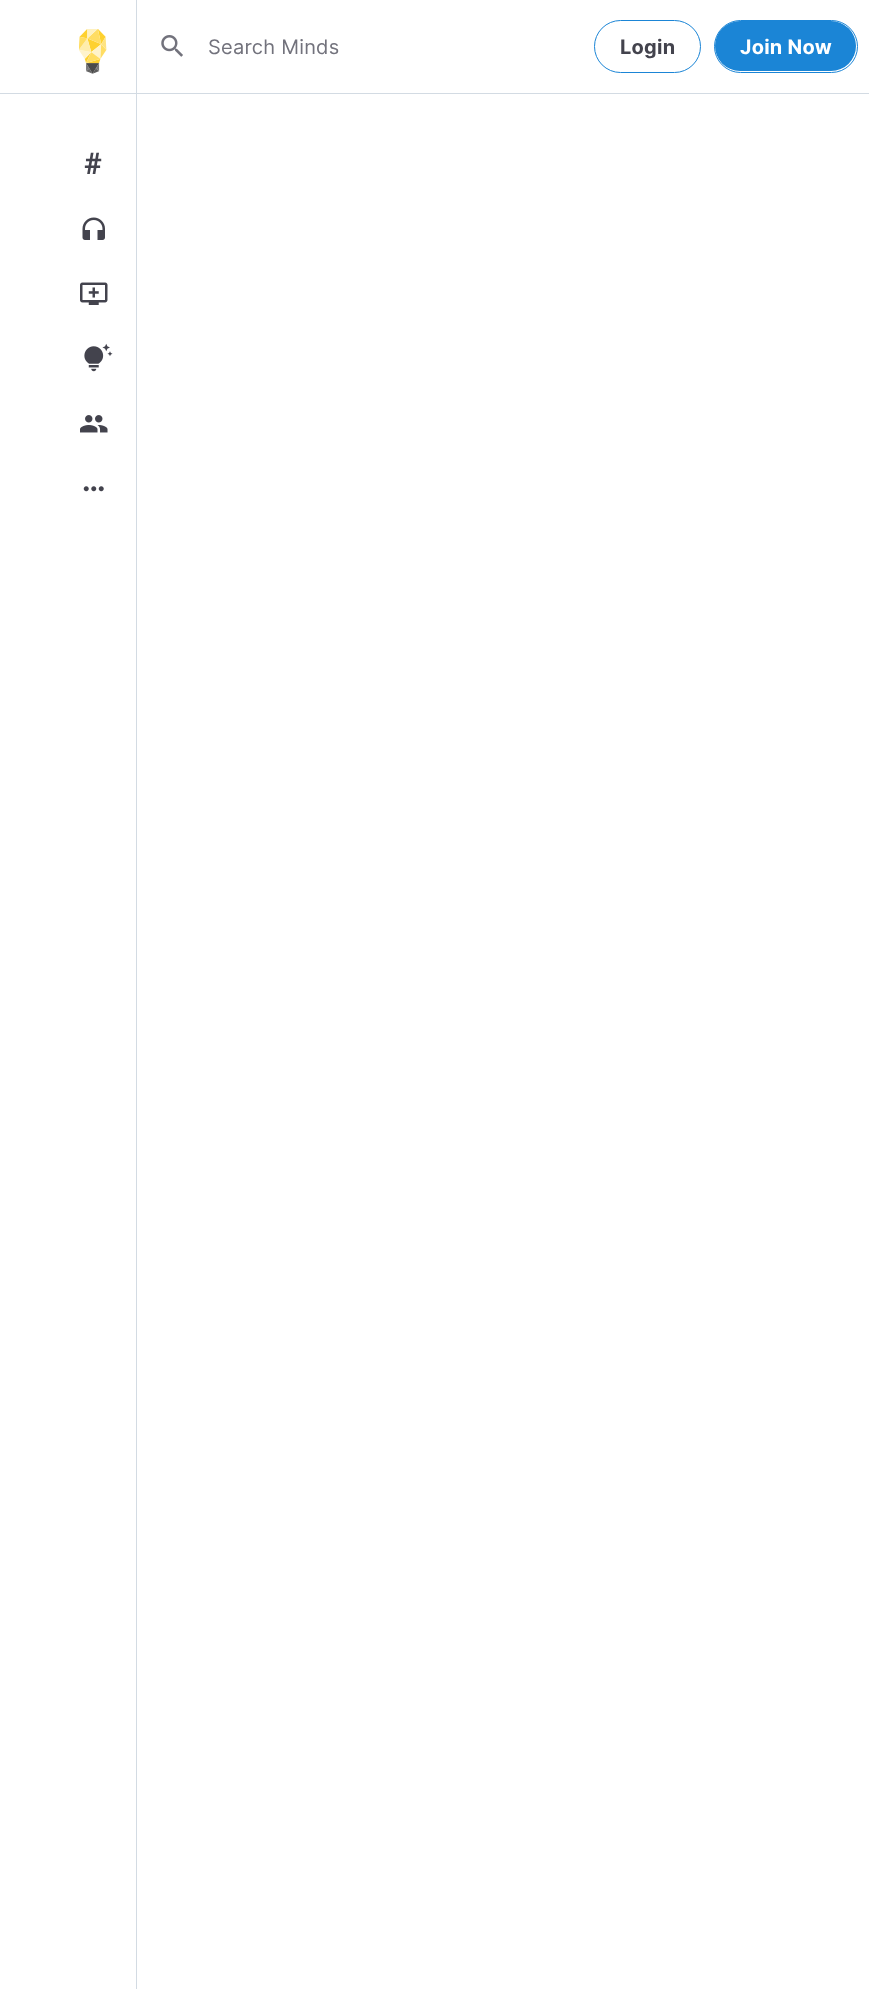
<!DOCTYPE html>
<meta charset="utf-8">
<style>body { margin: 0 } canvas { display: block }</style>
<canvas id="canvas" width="869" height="1989"></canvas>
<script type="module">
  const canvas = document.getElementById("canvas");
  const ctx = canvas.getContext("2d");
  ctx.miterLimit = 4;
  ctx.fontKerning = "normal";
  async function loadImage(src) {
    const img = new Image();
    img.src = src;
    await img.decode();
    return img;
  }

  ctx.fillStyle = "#ffffff";
  ctx.fillRect(0, 0, 869, 1989);
  ctx.fillStyle = "#d3dbe3";
  ctx.fillRect(0, 93, 869, 1);
  ctx.fillRect(136, 0, 1, 93);
  ctx.drawImage(await loadImage("img1.png"), 79, 29, 28, 45);
  ctx.drawImage(await loadImage("img2.png"), 161, 35, 22, 22);
  ctx.letterSpacing = "0.25px";
  ctx.font = "20px Inter";
  ctx.fillStyle = "#72727c";
  ctx.fillText("Search Minds", 208, 54);
  ctx.beginPath();
  ctx.roundRect(594.5, 20.5, 106, 52, 26);
  ctx.strokeStyle = "#1b85d6";
  ctx.stroke();
  ctx.font = "bold 20px Inter";
  ctx.fillStyle = "#43434d";
  ctx.fillText("Login", 620, 54);
  ctx.fillStyle = "#1b85d6";
  ctx.beginPath();
  ctx.roundRect(715, 21, 141, 50, 25);
  ctx.fill();
  ctx.beginPath();
  ctx.roundRect(714.5, 20.5, 143, 52, 26);
  ctx.stroke();
  ctx.fillStyle = "#ffffff";
  ctx.fillText("Join Now", 740, 54);
  ctx.fillStyle = "#d3dbe3";
  ctx.fillRect(136, 94, 1, 1895);
  ctx.letterSpacing = "0px";
  ctx.font = "bold 30px Roboto";
  ctx.fillStyle = "#43434d";
  ctx.fillText("#", 84, 174);
  ctx.drawImage(await loadImage("img3.png"), 82, 217, 23, 23);
  ctx.drawImage(await loadImage("img4.png"), 80, 282, 28, 23);
  ctx.drawImage(await loadImage("img5.png"), 84, 343, 29, 29);
  ctx.drawImage(await loadImage("img6.png"), 80, 415, 28, 18);
  ctx.drawImage(await loadImage("img7.png"), 83, 486, 21, 6);
</script>
